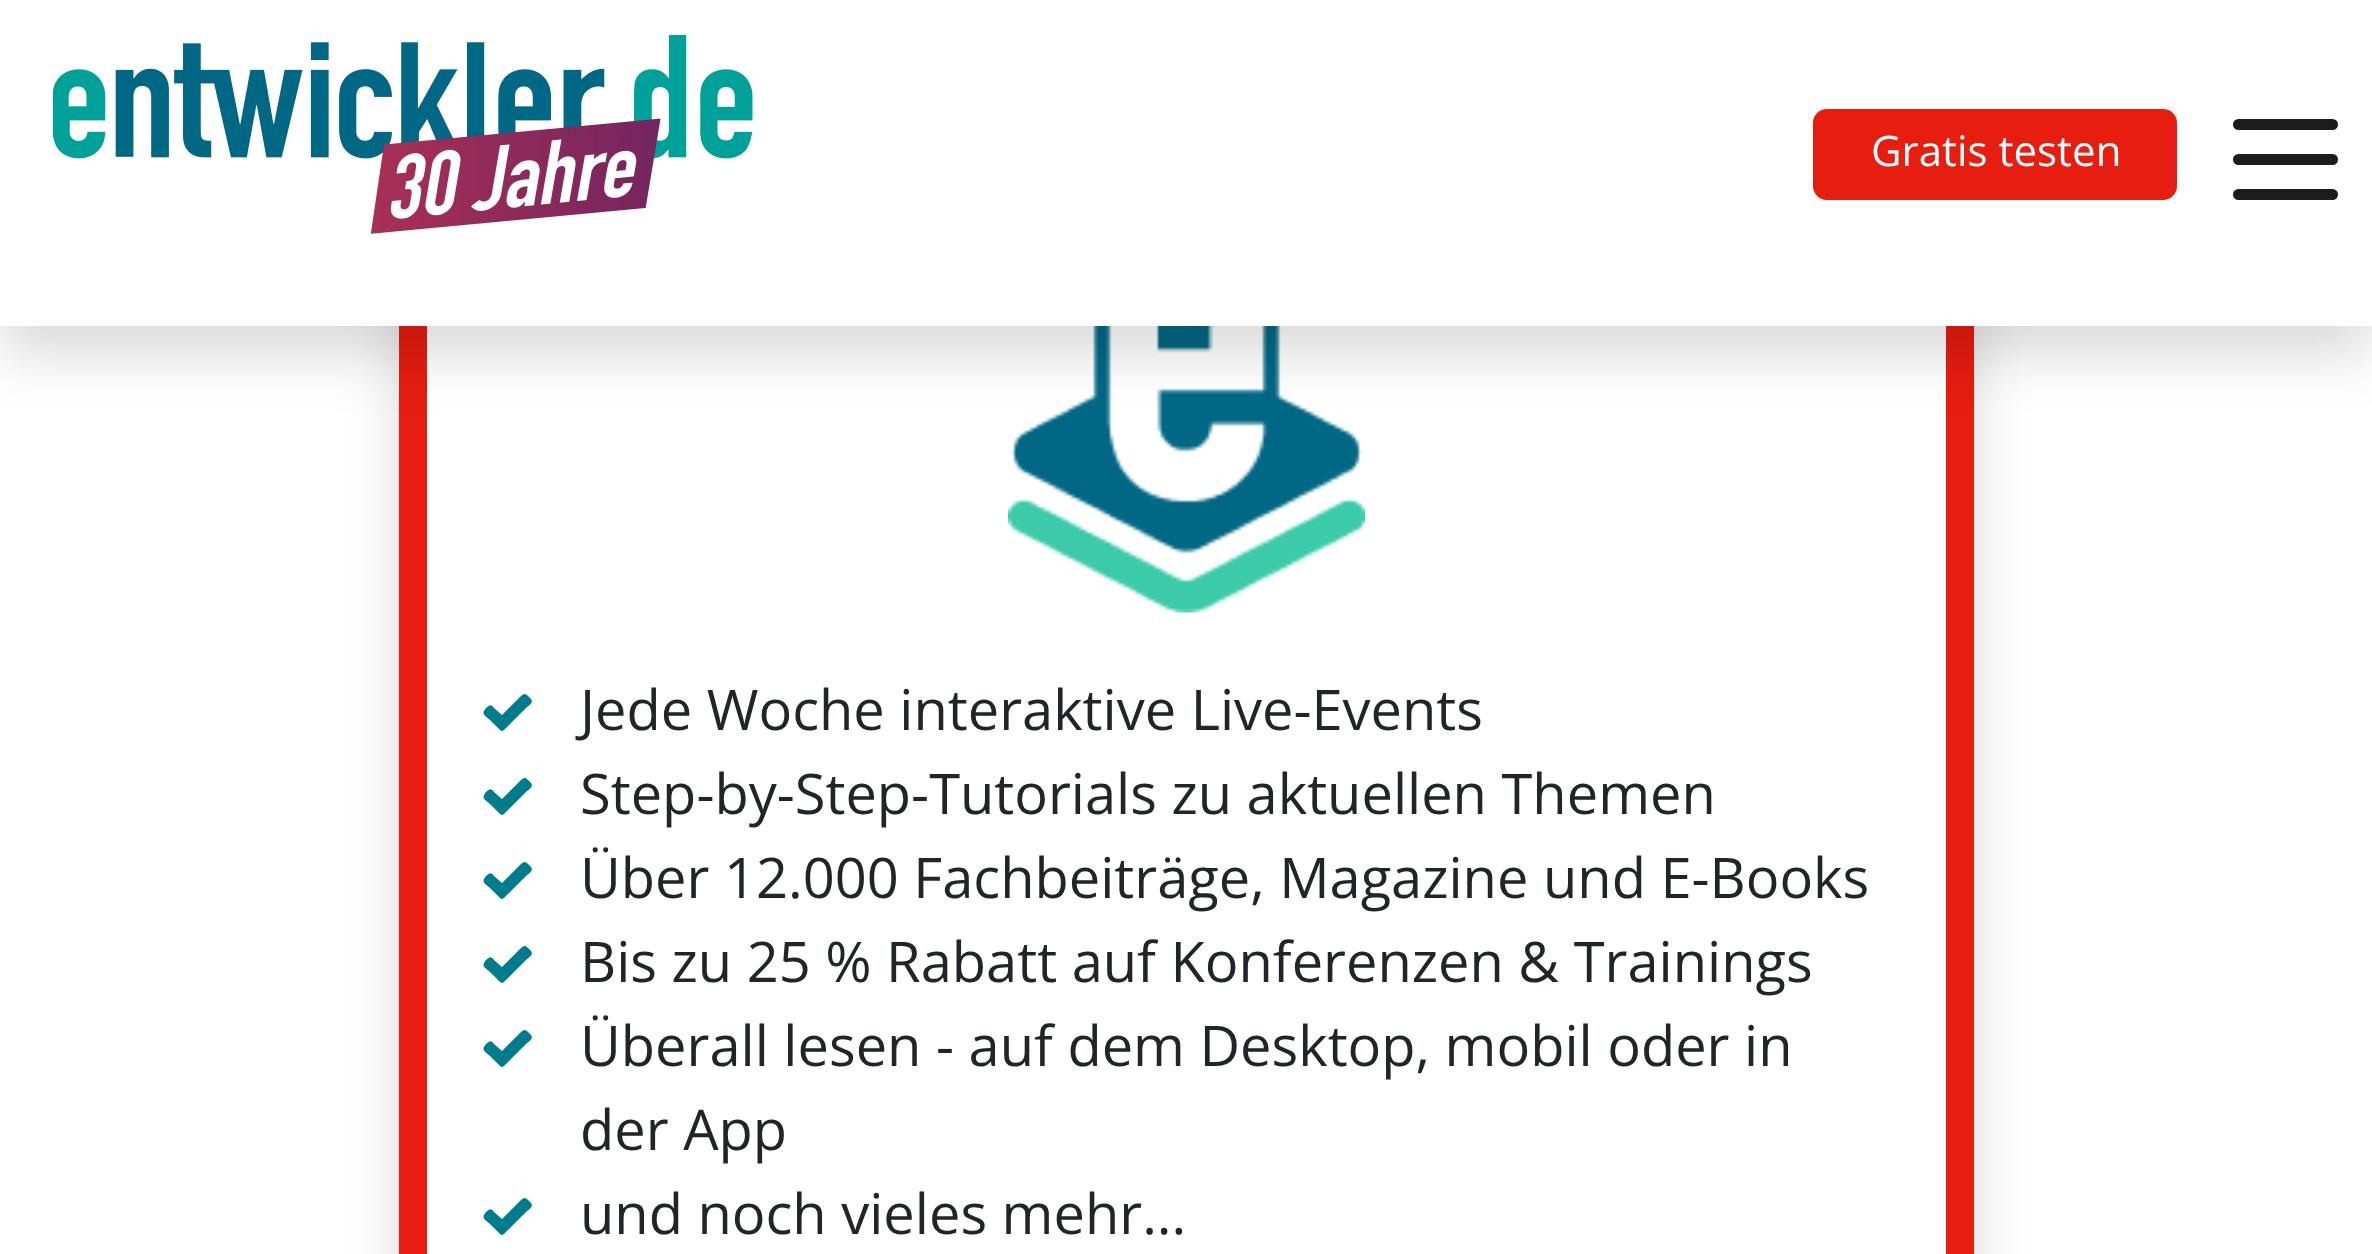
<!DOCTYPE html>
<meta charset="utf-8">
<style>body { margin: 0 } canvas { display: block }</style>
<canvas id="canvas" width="2372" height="1254"></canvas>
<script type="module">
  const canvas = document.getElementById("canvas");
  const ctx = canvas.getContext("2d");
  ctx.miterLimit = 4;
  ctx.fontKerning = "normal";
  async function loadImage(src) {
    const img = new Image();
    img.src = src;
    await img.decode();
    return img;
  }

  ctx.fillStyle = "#ffffff";
  ctx.fillRect(0, 0, 2372, 1254);
  ctx.fillStyle = "rgba(0, 0, 0, 0.15)";
  ctx.filter = "blur(28px)";
  ctx.beginPath();
  ctx.roundRect(399, -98, 1575, 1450, 14);
  ctx.fill();
  ctx.filter = "none";
  ctx.fillStyle = "#e61d0f";
  ctx.fillRect(399, 326, 1575, 928);
  ctx.fillStyle = "#ffffff";
  ctx.fillRect(427, 326, 1519, 928);
  ctx.drawImage(await loadImage("img2.png"), 1008, 326, 357, 287);
  ctx.fillStyle = "rgba(0, 0, 0, 0.15)";
  ctx.filter = "blur(28px)";
  ctx.beginPath();
  ctx.rect(0, 28, 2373, 326);
  ctx.fill();
  ctx.filter = "none";
  ctx.fillStyle = "#ffffff";
  ctx.fillRect(0, 0, 2372, 326);
  ctx.drawImage(await loadImage("img1.png"), 53, 35, 700, 199);
  ctx.fillStyle = "#e61d0f";
  ctx.beginPath();
  ctx.roundRect(1813, 109, 364, 91, 14);
  ctx.fill();
  ctx.font = "42px Open Sans";
  ctx.fillStyle = "#ffffff";
  ctx.fillText("Gratis testen", 1871, 166);
  ctx.fillStyle = "#1c1c1e";
  ctx.beginPath();
  ctx.roundRect(2233, 119, 105, 11, 5.5);
  ctx.fill();
  ctx.beginPath();
  ctx.roundRect(2233, 154, 105, 11, 5.5);
  ctx.fill();
  ctx.beginPath();
  ctx.roundRect(2233, 189, 105, 11, 5.5);
  ctx.fill();
  ctx.fillStyle = "#007d8d";
  ctx.beginPath();
  ctx.moveTo(531, 699);
  ctx.bezierCurveTo(534, 702, 529, 706, 527, 707);
  ctx.lineTo(506, 728);
  ctx.bezierCurveTo(502, 732, 502, 732, 498, 728);
  ctx.lineTo(490, 720);
  ctx.bezierCurveTo(484, 715, 481, 714, 486, 708);
  ctx.bezierCurveTo(490, 705, 491, 704, 494, 708);
  ctx.lineTo(502, 715);
  ctx.lineTo(519, 698);
  ctx.bezierCurveTo(525, 692, 525, 693, 531, 699);
  ctx.closePath();
  ctx.fill();
  ctx.font = "56px Open Sans";
  ctx.fillStyle = "#212529";
  ctx.fillText("Jede Woche interaktive Live-Events", 580, 730);
  ctx.fillStyle = "#007d8d";
  ctx.beginPath();
  ctx.moveTo(531, 783);
  ctx.bezierCurveTo(534, 786, 529, 790, 527, 791);
  ctx.lineTo(506, 812);
  ctx.bezierCurveTo(502, 816, 502, 816, 498, 812);
  ctx.lineTo(490, 804);
  ctx.bezierCurveTo(484, 799, 481, 798, 486, 792);
  ctx.bezierCurveTo(490, 789, 491, 788, 494, 792);
  ctx.lineTo(502, 799);
  ctx.lineTo(519, 782);
  ctx.bezierCurveTo(525, 776, 525, 777, 531, 783);
  ctx.closePath();
  ctx.fill();
  ctx.fillStyle = "#212529";
  ctx.fillText("Step-by-Step-Tutorials zu aktuellen Themen", 580, 814);
  ctx.fillStyle = "#007d8d";
  ctx.beginPath();
  ctx.moveTo(531, 867);
  ctx.bezierCurveTo(534, 870, 529, 874, 527, 875);
  ctx.lineTo(506, 896);
  ctx.bezierCurveTo(502, 900, 502, 900, 498, 896);
  ctx.lineTo(490, 888);
  ctx.bezierCurveTo(484, 883, 481, 882, 486, 876);
  ctx.bezierCurveTo(490, 873, 491, 872, 494, 876);
  ctx.lineTo(502, 883);
  ctx.lineTo(519, 866);
  ctx.bezierCurveTo(525, 860, 525, 861, 531, 867);
  ctx.closePath();
  ctx.fill();
  ctx.fillStyle = "#212529";
  ctx.fillText("Über 12.000 Fachbeiträge, Magazine und E-Books", 580, 898);
  ctx.fillStyle = "#007d8d";
  ctx.beginPath();
  ctx.moveTo(531, 951);
  ctx.bezierCurveTo(534, 954, 529, 958, 527, 959);
  ctx.lineTo(506, 980);
  ctx.bezierCurveTo(502, 984, 502, 984, 498, 980);
  ctx.lineTo(490, 972);
  ctx.bezierCurveTo(484, 967, 481, 966, 486, 960);
  ctx.bezierCurveTo(490, 957, 491, 956, 494, 960);
  ctx.lineTo(502, 967);
  ctx.lineTo(519, 950);
  ctx.bezierCurveTo(525, 944, 525, 945, 531, 951);
  ctx.closePath();
  ctx.fill();
  ctx.fillStyle = "#212529";
  ctx.fillText("Bis zu 25 % Rabatt auf Konferenzen & Trainings", 580, 982);
  ctx.fillStyle = "#007d8d";
  ctx.beginPath();
  ctx.moveTo(531, 1035);
  ctx.bezierCurveTo(534, 1038, 529, 1042, 527, 1043);
  ctx.lineTo(506, 1064);
  ctx.bezierCurveTo(502, 1068, 502, 1068, 498, 1064);
  ctx.lineTo(490, 1056);
  ctx.bezierCurveTo(484, 1051, 481, 1050, 486, 1044);
  ctx.bezierCurveTo(490, 1041, 491, 1040, 494, 1044);
  ctx.lineTo(502, 1051);
  ctx.lineTo(519, 1034);
  ctx.bezierCurveTo(525, 1028, 525, 1029, 531, 1035);
  ctx.closePath();
  ctx.fill();
  ctx.fillStyle = "#212529";
  ctx.fillText("Überall lesen - auf dem Desktop, mobil oder in", 580, 1066);
  ctx.fillText("der App", 580, 1150);
  ctx.fillStyle = "#007d8d";
  ctx.beginPath();
  ctx.moveTo(531, 1203);
  ctx.bezierCurveTo(534, 1206, 529, 1210, 527, 1211);
  ctx.lineTo(506, 1232);
  ctx.bezierCurveTo(502, 1236, 502, 1236, 498, 1232);
  ctx.lineTo(490, 1224);
  ctx.bezierCurveTo(484, 1219, 481, 1218, 486, 1212);
  ctx.bezierCurveTo(490, 1209, 491, 1208, 494, 1212);
  ctx.lineTo(502, 1219);
  ctx.lineTo(519, 1202);
  ctx.bezierCurveTo(525, 1196, 525, 1197, 531, 1203);
  ctx.closePath();
  ctx.fill();
  ctx.fillStyle = "#212529";
  ctx.fillText("und noch vieles mehr...", 580, 1234);
</script>
